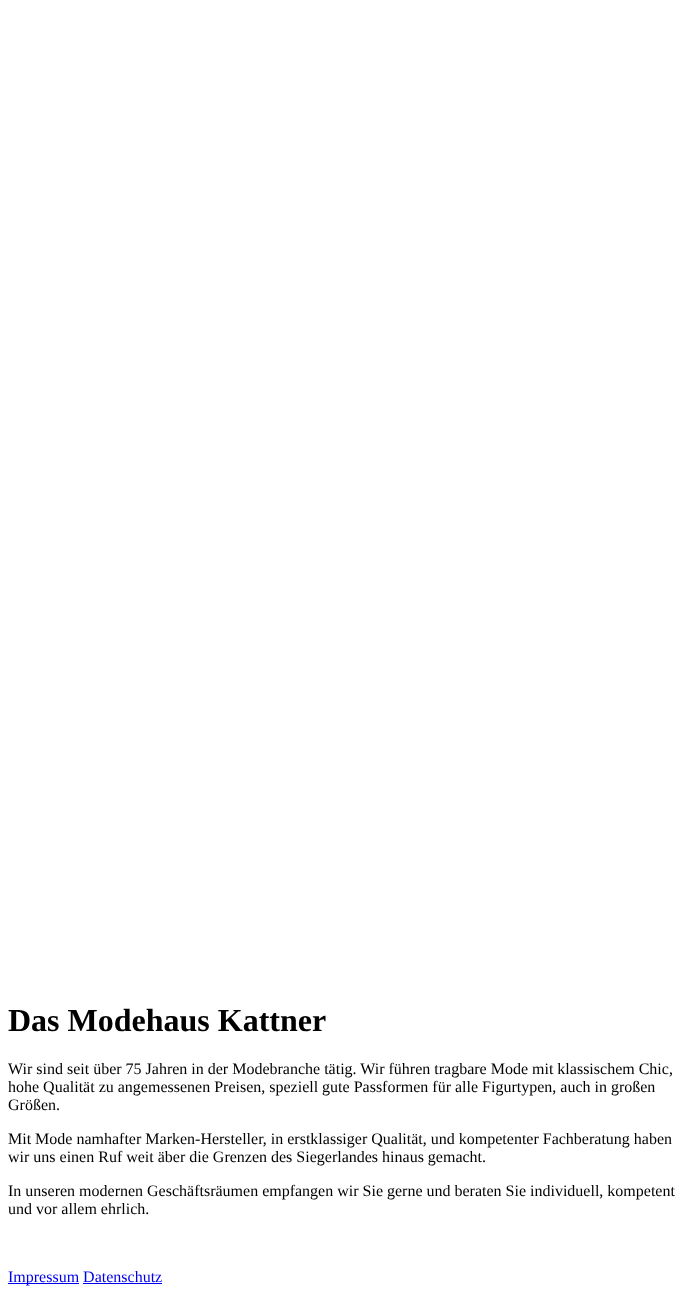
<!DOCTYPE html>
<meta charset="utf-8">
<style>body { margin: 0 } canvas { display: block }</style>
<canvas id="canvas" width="695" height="1302"></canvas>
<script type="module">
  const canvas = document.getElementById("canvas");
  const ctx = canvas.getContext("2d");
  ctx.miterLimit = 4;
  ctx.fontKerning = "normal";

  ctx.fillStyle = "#ffffff";
  ctx.fillRect(0, 0, 695, 1302);
  ctx.font = "bold 32px Liberation Serif";
  ctx.fillStyle = "#000000";
  ctx.fillText("Das Modehaus Kattner", 8, 1031);
  ctx.font = "16px Liberation Serif";
  ctx.fillText("Wir sind seit über 75 Jahren in der Modebranche tätig. Wir führen tragbare Mode mit klassischem Chic,", 8, 1074);
  ctx.fillText("hohe Qualität zu angemessenen Preisen, speziell gute Passformen für alle Figurtypen, auch in großen", 8, 1092);
  ctx.fillText("Größen.", 8, 1110);
  ctx.fillText("Mit Mode namhafter Marken-Hersteller, in erstklassiger Qualität, und kompetenter Fachberatung haben", 8, 1144);
  ctx.fillText("wir uns einen Ruf weit äber die Grenzen des Siegerlandes hinaus gemacht.", 8, 1162);
  ctx.fillText("In unseren modernen Geschäftsräumen empfangen wir Sie gerne und beraten Sie individuell, kompetent", 8, 1196);
  ctx.fillText("und vor allem ehrlich.", 8, 1214);
  ctx.fillStyle = "#0000ee";
  ctx.fillRect(8, 1283, 71, 1);
  ctx.fillText("Impressum Datenschutz", 8, 1282);
  ctx.fillRect(83, 1283, 79, 1);
</script>
